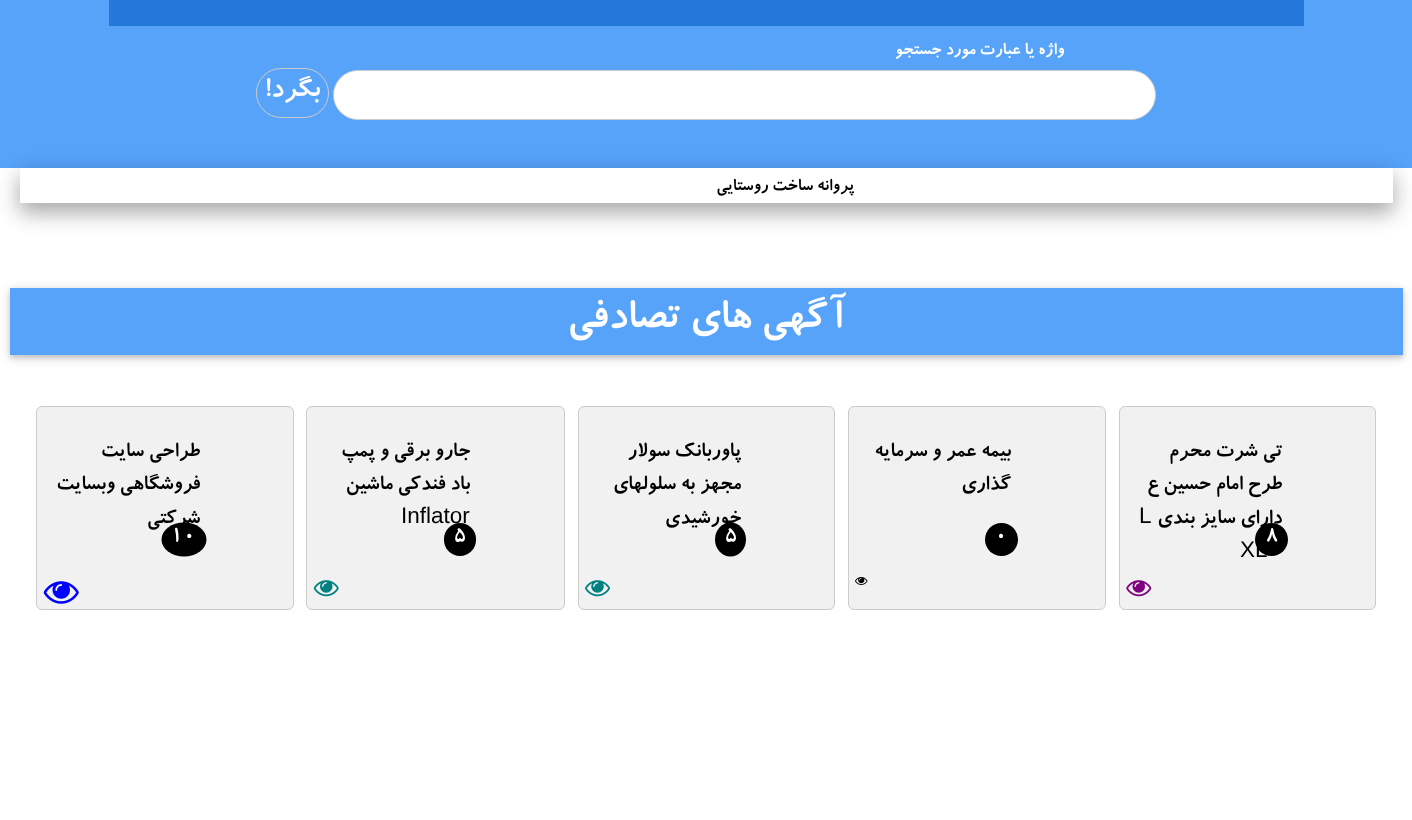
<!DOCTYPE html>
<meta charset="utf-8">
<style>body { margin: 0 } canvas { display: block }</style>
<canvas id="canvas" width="1412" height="820"></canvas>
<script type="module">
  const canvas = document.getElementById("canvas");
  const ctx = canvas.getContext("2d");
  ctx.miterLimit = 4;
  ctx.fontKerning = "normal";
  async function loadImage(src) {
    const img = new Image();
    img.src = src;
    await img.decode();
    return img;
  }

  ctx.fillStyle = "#ffffff";
  ctx.fillRect(0, 0, 1412, 820);
  ctx.fillStyle = "#57a3f9";
  ctx.fillRect(0, 0, 1412, 168);
  ctx.fillStyle = "#2378d9";
  ctx.fillRect(109, 0, 1195, 26);
  ctx.direction = "rtl";
  ctx.font = "bold 18.75px '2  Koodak'";
  ctx.fillStyle = "#ffffff";
  ctx.fillText("واژه یا عبارت مورد جستجو", 1064, 54);
  ctx.beginPath();
  ctx.roundRect(333.5, 70.5, 822, 49, 24.5);
  ctx.fill();
  ctx.strokeStyle = "#cccccc";
  ctx.stroke();
  ctx.beginPath();
  ctx.roundRect(256.5, 68.5, 72, 49, 24.5);
  ctx.stroke();
  ctx.font = "bold 30px '2  Koodak'";
  ctx.fillText("بگرد!", 320, 96);
  ctx.save();
  ctx.beginPath();
  ctx.moveTo(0, 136);
  ctx.lineTo(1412, 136);
  ctx.lineTo(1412, 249);
  ctx.lineTo(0, 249);
  ctx.closePath();
  ctx.moveTo(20, 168);
  ctx.lineTo(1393, 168);
  ctx.lineTo(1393, 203);
  ctx.lineTo(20, 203);
  ctx.closePath();
  ctx.clip("evenodd");
  ctx.fillStyle = "rgba(0, 0, 0, 0.19)";
  ctx.filter = "blur(12.5px)";
  ctx.beginPath();
  ctx.rect(20, 175, 1373, 35);
  ctx.fill();
  ctx.filter = "none";
  ctx.restore();
  ctx.save();
  ctx.beginPath();
  ctx.moveTo(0, 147);
  ctx.lineTo(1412, 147);
  ctx.lineTo(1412, 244);
  ctx.lineTo(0, 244);
  ctx.closePath();
  ctx.moveTo(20, 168);
  ctx.lineTo(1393, 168);
  ctx.lineTo(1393, 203);
  ctx.lineTo(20, 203);
  ctx.closePath();
  ctx.clip("evenodd");
  ctx.fillStyle = "rgba(0, 0, 0, 0.2)";
  ctx.filter = "blur(10px)";
  ctx.beginPath();
  ctx.rect(20, 178, 1373, 35);
  ctx.fill();
  ctx.filter = "none";
  ctx.restore();
  ctx.font = "bold 18.75px '2  Koodak'";
  ctx.fillStyle = "#000000";
  ctx.fillText("پروانه ساخت روستایی", 854, 190);
  ctx.fillStyle = "rgba(0, 0, 0, 0.12)";
  ctx.filter = "blur(6px)";
  ctx.beginPath();
  ctx.rect(10, 290, 1393, 68);
  ctx.fill();
  ctx.filter = "none";
  ctx.fillStyle = "rgba(0, 0, 0, 0.16)";
  ctx.filter = "blur(2.5px)";
  ctx.beginPath();
  ctx.rect(10, 290, 1393, 68);
  ctx.fill();
  ctx.filter = "none";
  ctx.fillStyle = "#57a3f9";
  ctx.fillRect(10, 288, 1393, 67);
  ctx.font = "bold 45px '2  Koodak'";
  ctx.fillStyle = "#ffffff";
  ctx.fillText("آگهی های تصادفی", 845, 327);
  ctx.fillStyle = "#f1f1f1";
  ctx.beginPath();
  ctx.roundRect(1119.5, 406.5, 256, 203, 5.5);
  ctx.fill();
  ctx.stroke();
  ctx.font = "bold 22.5px '2  Koodak'";
  ctx.fillStyle = "#000000";
  ctx.fillText("تی شرت محرم", 1282, 456);
  ctx.fillText("طرح امام حسین ع", 1282, 489);
  ctx.fillText("دارای سایز بندی", 1282, 523);
  ctx.direction = "ltr";
  ctx.font = "22.5px Liberation Sans";
  ctx.fillText("L", 1139, 523);
  ctx.fillText("XL", 1240, 557);
  ctx.beginPath();
  ctx.arc(1271.5, 539.5, 16.5, 0, Math.PI * 2);
  ctx.fill();
  ctx.font = "bold 22.5px '2  Koodak'";
  ctx.fillStyle = "#ffffff";
  ctx.fillText("8", 1266, 541);
  ctx.drawImage(await loadImage("img1.png"), 1126, 580, 26, 17);
  ctx.fillStyle = "#f1f1f1";
  ctx.beginPath();
  ctx.roundRect(848.5, 406.5, 257, 203, 5.5);
  ctx.fill();
  ctx.stroke();
  ctx.direction = "rtl";
  ctx.fillStyle = "#000000";
  ctx.fillText("بیمه عمر و سرمایه", 1011, 456);
  ctx.fillText("گذاری", 1011, 489);
  ctx.beginPath();
  ctx.arc(1001.5, 539.5, 16.5, 0, Math.PI * 2);
  ctx.fill();
  ctx.direction = "ltr";
  ctx.fillStyle = "#ffffff";
  ctx.fillText("0", 995, 541);
  ctx.drawImage(await loadImage("img2.png"), 855, 577, 13, 8);
  ctx.fillStyle = "#f1f1f1";
  ctx.beginPath();
  ctx.roundRect(578.5, 406.5, 256, 203, 5.5);
  ctx.fill();
  ctx.stroke();
  ctx.direction = "rtl";
  ctx.fillStyle = "#000000";
  ctx.fillText("پاوربانک سولار", 741, 456);
  ctx.fillText("مجهز به سلولهای", 741, 489);
  ctx.fillText("خورشیدی", 741, 523);
  ctx.beginPath();
  ctx.ellipse(730.5, 539.5, 15.5, 17, 0, 0, Math.PI * 2);
  ctx.fill();
  ctx.direction = "ltr";
  ctx.fillStyle = "#ffffff";
  ctx.fillText("5", 725, 541);
  ctx.drawImage(await loadImage("img3.png"), 585, 580, 25, 17);
  ctx.fillStyle = "#f1f1f1";
  ctx.beginPath();
  ctx.roundRect(306.5, 406.5, 258, 203, 5.5);
  ctx.fill();
  ctx.stroke();
  ctx.direction = "rtl";
  ctx.fillStyle = "#000000";
  ctx.fillText("جارو برقی و پمپ", 470, 456);
  ctx.fillText("باد فندکی ماشین", 470, 489);
  ctx.direction = "ltr";
  ctx.font = "22.5px Liberation Sans";
  ctx.fillText("Inflator", 401, 523);
  ctx.beginPath();
  ctx.roundRect(444, 523, 32, 33, 16);
  ctx.fill();
  ctx.font = "bold 22.5px '2  Koodak'";
  ctx.fillStyle = "#ffffff";
  ctx.fillText("5", 454, 541);
  ctx.drawImage(await loadImage("img4.png"), 313, 580, 26, 17);
  ctx.fillStyle = "#f1f1f1";
  ctx.beginPath();
  ctx.roundRect(36.5, 406.5, 257, 203, 5.5);
  ctx.fill();
  ctx.stroke();
  ctx.direction = "rtl";
  ctx.fillStyle = "#000000";
  ctx.fillText("طراحی سایت", 200, 456);
  ctx.fillText("فروشگاهی وبسایت", 200, 489);
  ctx.fillText("شرکتی", 200, 523);
  ctx.beginPath();
  ctx.ellipse(184, 539.5, 22.5, 17, 0, 0, Math.PI * 2);
  ctx.fill();
  ctx.direction = "ltr";
  ctx.fillStyle = "#ffffff";
  ctx.fillText("10", 171, 541);
  ctx.drawImage(await loadImage("img5.png"), 43, 581, 36, 23);
</script>
